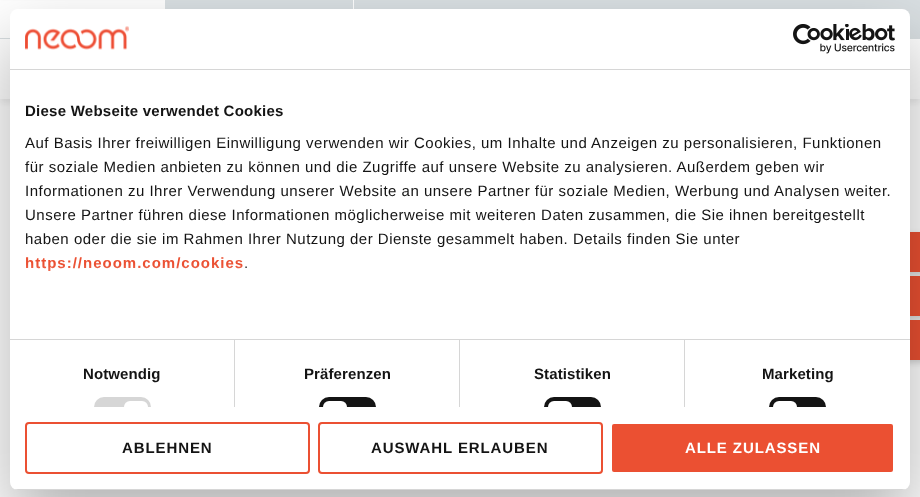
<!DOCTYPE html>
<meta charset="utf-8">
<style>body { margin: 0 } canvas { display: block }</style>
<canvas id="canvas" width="920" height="497"></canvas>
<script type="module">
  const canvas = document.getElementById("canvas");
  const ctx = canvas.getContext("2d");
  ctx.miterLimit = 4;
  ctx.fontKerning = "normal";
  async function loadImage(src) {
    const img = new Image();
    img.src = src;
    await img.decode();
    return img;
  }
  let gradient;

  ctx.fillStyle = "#ffffff";
  ctx.fillRect(0, 0, 920, 497);
  ctx.fillStyle = "rgba(0, 0, 0, 0.07)";
  ctx.filter = "blur(3px)";
  ctx.beginPath();
  ctx.rect(0, 4, 920, 99);
  ctx.fill();
  ctx.filter = "none";
  ctx.fillStyle = "#ffffff";
  ctx.fillRect(0, 39, 920, 60);
  ctx.fillStyle = "#d9dfe2";
  ctx.fillRect(165, 0, 755, 39);
  ctx.fillStyle = "#ffffff";
  ctx.fillRect(164, 0, 1, 9);
  ctx.fillStyle = "#d9dfe2";
  ctx.fillRect(0, 38, 10, 1);
  ctx.fillStyle = "#ffffff";
  ctx.fillRect(0, 1, 164, 37);
  ctx.fillRect(353, 0, 1, 9);
  ctx.fillStyle = "rgba(0, 0, 0, 0.16)";
  ctx.filter = "blur(3px)";
  ctx.beginPath();
  ctx.roundRect(860, 235, 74, 40, 5);
  ctx.fill();
  ctx.filter = "none";
  ctx.fillStyle = "#eb5032";
  ctx.fillRect(910, 232, 10, 40);
  ctx.fillStyle = "rgba(0, 0, 0, 0.16)";
  ctx.filter = "blur(3px)";
  ctx.beginPath();
  ctx.roundRect(860, 279, 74, 40, 5);
  ctx.fill();
  ctx.filter = "none";
  ctx.fillStyle = "#eb5032";
  ctx.fillRect(910, 276, 10, 40);
  ctx.fillStyle = "rgba(0, 0, 0, 0.16)";
  ctx.filter = "blur(3px)";
  ctx.beginPath();
  ctx.roundRect(860, 323, 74, 40, 5);
  ctx.fill();
  ctx.filter = "none";
  ctx.fillStyle = "#eb5032";
  ctx.fillRect(910, 320, 10, 40);
  ctx.fillStyle = "rgba(0, 0, 0, 0.3)";
  ctx.filter = "blur(34px)";
  ctx.beginPath();
  ctx.roundRect(10, 41, 900, 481, 8);
  ctx.fill();
  ctx.filter = "none";
  ctx.fillStyle = "#ffffff";
  ctx.beginPath();
  ctx.roundRect(10, 9, 900, 481, 8);
  ctx.fill();
  ctx.fillStyle = "#d6d6d6";
  ctx.fillRect(10, 69, 900, 1);
  ctx.drawImage(await loadImage("img1.png"), 25, 26, 104, 24);
  ctx.drawImage(await loadImage("img2.png"), 793, 24, 102, 30);
  ctx.fillRect(10, 339, 900, 1);
  ctx.letterSpacing = "0.25px";
  ctx.font = "bold 15px Liberation Sans";
  ctx.fillStyle = "#141414";
  ctx.fillText("Diese Webseite verwendet Cookies", 25, 116);
  ctx.letterSpacing = "0.5px";
  ctx.font = "15px Liberation Sans";
  ctx.fillText("Auf Basis Ihrer freiwilligen Einwilligung verwenden wir Cookies, um Inhalte und Anzeigen zu personalisieren, Funktionen", 25, 148);
  ctx.fillText("für soziale Medien anbieten zu können und die Zugriffe auf unsere Website zu analysieren. Außerdem geben wir", 25, 172);
  ctx.fillText("Informationen zu Ihrer Verwendung unserer Website an unsere Partner für soziale Medien, Werbung und Analysen weiter.", 25, 196);
  ctx.fillText("Unsere Partner führen diese Informationen möglicherweise mit weiteren Daten zusammen, die Sie ihnen bereitgestellt", 25, 220);
  ctx.fillText("haben oder die sie im Rahmen Ihrer Nutzung der Dienste gesammelt haben. Details finden Sie unter", 25, 244);
  ctx.letterSpacing = "1px";
  ctx.font = "bold 15px Liberation Sans";
  ctx.fillStyle = "#eb5032";
  ctx.fillText("https://neoom.com/cookies", 25, 268);
  ctx.letterSpacing = "0.5px";
  ctx.font = "15px Liberation Sans";
  ctx.fillStyle = "#141414";
  ctx.fillText(".", 244, 268);
  gradient = ctx.createLinearGradient(454, 339, 454, 264);
  gradient.addColorStop(0, "#ffffff");
  gradient.addColorStop(0.5, "rgba(255, 255, 255, 0.8)");
  gradient.addColorStop(1, "rgba(255, 255, 255, 0)");
  ctx.fillStyle = gradient;
  ctx.fillRect(26, 265, 221, 7);
  ctx.fillStyle = "#d6d6d6";
  ctx.fillRect(234, 340, 1, 67);
  ctx.letterSpacing = "0.1px";
  ctx.font = "bold 15px Liberation Sans";
  ctx.fillStyle = "#141414";
  ctx.fillText("Notwendig", 83, 379);
  ctx.fillStyle = "#d6d6d6";
  ctx.beginPath();
  ctx.roundRect(94, 397, 57, 10, [16, 16, 0, 0]);
  ctx.fill();
  ctx.fillStyle = "#ffffff";
  ctx.beginPath();
  ctx.roundRect(124, 401, 24, 6, [12, 12, 0, 0]);
  ctx.fill();
  ctx.fillStyle = "#d6d6d6";
  ctx.fillRect(459, 340, 1, 67);
  ctx.fillStyle = "#141414";
  ctx.fillText("Präferenzen", 304, 379);
  ctx.beginPath();
  ctx.roundRect(319, 397, 57, 10, [16, 16, 0, 0]);
  ctx.fill();
  ctx.fillStyle = "#ffffff";
  ctx.beginPath();
  ctx.roundRect(323, 401, 24, 6, [12, 12, 0, 0]);
  ctx.fill();
  ctx.fillStyle = "#d6d6d6";
  ctx.fillRect(684, 340, 1, 67);
  ctx.fillStyle = "#141414";
  ctx.fillText("Statistiken", 534, 379);
  ctx.beginPath();
  ctx.roundRect(544, 397, 57, 10, [16, 16, 0, 0]);
  ctx.fill();
  ctx.fillStyle = "#ffffff";
  ctx.beginPath();
  ctx.roundRect(548, 401, 24, 6, [12, 12, 0, 0]);
  ctx.fill();
  ctx.fillStyle = "#141414";
  ctx.fillText("Marketing", 762, 379);
  ctx.beginPath();
  ctx.roundRect(769, 397, 57, 10, [16, 16, 0, 0]);
  ctx.fill();
  ctx.fillStyle = "#ffffff";
  ctx.beginPath();
  ctx.roundRect(773, 401, 24, 6, [12, 12, 0, 0]);
  ctx.fill();
  ctx.save();
  ctx.beginPath();
  ctx.roundRect(10, 9, 900, 481, 8);
  ctx.clip();
  ctx.fillStyle = "#d6d6d6";
  ctx.fillRect(10, 489, 900, 1);
  ctx.restore();
  ctx.beginPath();
  ctx.roundRect(26, 423, 283, 50, 3);
  ctx.strokeStyle = "#eb5032";
  ctx.lineWidth = 2;
  ctx.stroke();
  ctx.letterSpacing = "0.9px";
  ctx.fillStyle = "#141414";
  ctx.fillText("ABLEHNEN", 122, 453);
  ctx.beginPath();
  ctx.roundRect(319, 423, 283, 50, 3);
  ctx.stroke();
  ctx.fillText("AUSWAHL ERLAUBEN", 371, 453);
  ctx.fillStyle = "#eb5032";
  ctx.beginPath();
  ctx.roundRect(611, 423, 283, 50, 3);
  ctx.fill();
  ctx.strokeStyle = "#ffffff";
  ctx.stroke();
  ctx.fillStyle = "#ffffff";
  ctx.fillText("ALLE ZULASSEN", 685, 453);
</script>
